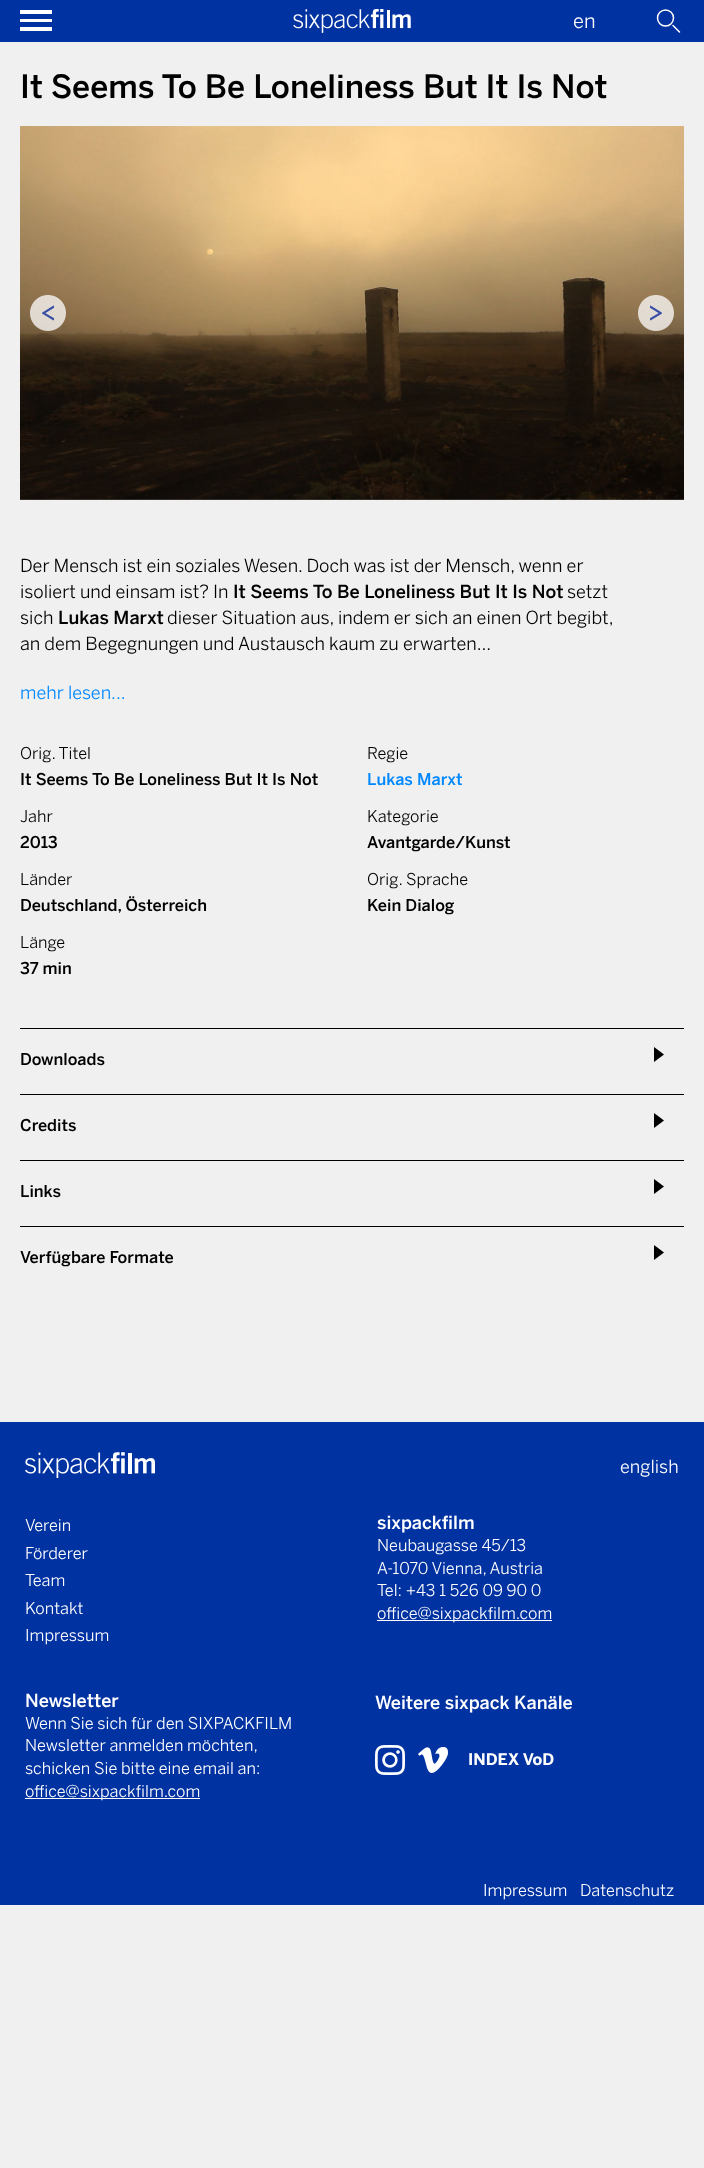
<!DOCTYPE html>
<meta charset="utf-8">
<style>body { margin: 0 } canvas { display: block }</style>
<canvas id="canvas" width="704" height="2168"></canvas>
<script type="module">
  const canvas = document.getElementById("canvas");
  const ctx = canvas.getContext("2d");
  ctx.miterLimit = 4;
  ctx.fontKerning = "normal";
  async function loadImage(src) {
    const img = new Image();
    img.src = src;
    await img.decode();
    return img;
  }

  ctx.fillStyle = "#f0f0f0";
  ctx.fillRect(0, 0, 704, 2168);
  ctx.fillStyle = "#0032a1";
  ctx.fillRect(0, 0, 704, 42);
  ctx.fillStyle = "#ffffff";
  ctx.fillRect(20, 10, 32, 4);
  ctx.fillRect(20, 19, 32, 3);
  ctx.fillRect(20, 27, 32, 4);
  ctx.drawImage(await loadImage("img1.png"), 293, 9, 118, 24);
  ctx.font = "300 20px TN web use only";
  ctx.fillText("en", 573, 28);
  ctx.beginPath();
  ctx.arc(665.5, 18, 8, 0, Math.PI * 2);
  ctx.strokeStyle = "#ffffff";
  ctx.lineWidth = 1.5;
  ctx.stroke();
  ctx.beginPath();
  ctx.moveTo(673, 25.5);
  ctx.lineTo(679.5, 32);
  ctx.lineCap = "round";
  ctx.stroke();
  ctx.font = "500 32px TN web use only";
  ctx.fillStyle = "#000000";
  ctx.fillText("It Seems To Be Loneliness But It Is Not", 20, 98);
  ctx.drawImage(await loadImage("img2.png"), 20, 126, 664, 374);
  ctx.drawImage(await loadImage("img3.png"), 30, 295, 36, 36);
  ctx.drawImage(await loadImage("img4.png"), 638, 295, 36, 36);
  ctx.font = "300 18px TN web use only";
  ctx.fillText("Der Mensch ist ein soziales Wesen. Doch was ist der Mensch, wenn er", 20, 572);
  ctx.fillText("isoliert und einsam ist? In", 20, 598);
  ctx.font = "500 18px TN web use only";
  ctx.fillText("It Seems To Be Loneliness But It Is Not", 233, 598);
  ctx.font = "300 18px TN web use only";
  ctx.fillText("setzt", 567, 598);
  ctx.fillText("sich", 20, 624);
  ctx.font = "500 18px TN web use only";
  ctx.fillText("Lukas Marxt", 58, 624);
  ctx.font = "300 18px TN web use only";
  ctx.fillText("dieser Situation aus, indem er sich an einen Ort begibt,", 167, 624);
  ctx.fillText("an dem Begegnungen und Austausch kaum zu erwarten...", 20, 650);
  ctx.fillStyle = "#0088ff";
  ctx.fillText("mehr lesen...", 20, 699);
  ctx.font = "300 16.25px TN web use only";
  ctx.fillStyle = "#000000";
  ctx.fillText("Orig. Titel", 20, 759);
  ctx.font = "500 16.25px TN web use only";
  ctx.fillText("It Seems To Be Loneliness But It Is Not", 20, 785);
  ctx.font = "300 16.25px TN web use only";
  ctx.fillText("Jahr", 20, 822);
  ctx.font = "500 16.25px TN web use only";
  ctx.fillText("2013", 20, 848);
  ctx.font = "300 16.25px TN web use only";
  ctx.fillText("Länder", 20, 885);
  ctx.font = "500 16.25px TN web use only";
  ctx.fillText("Deutschland, Österreich", 20, 911);
  ctx.font = "300 16.25px TN web use only";
  ctx.fillText("Länge", 20, 948);
  ctx.font = "500 16.25px TN web use only";
  ctx.fillText("37 min", 20, 974);
  ctx.font = "300 16.25px TN web use only";
  ctx.fillText("Regie", 367, 759);
  ctx.font = "500 16.25px TN web use only";
  ctx.fillStyle = "#0088ff";
  ctx.fillText("Lukas Marxt", 367, 785);
  ctx.font = "300 16.25px TN web use only";
  ctx.fillStyle = "#000000";
  ctx.fillText("Kategorie", 367, 822);
  ctx.font = "500 16.25px TN web use only";
  ctx.fillText("Avantgarde/Kunst", 367, 848);
  ctx.font = "300 16.25px TN web use only";
  ctx.fillText("Orig. Sprache", 367, 885);
  ctx.font = "500 16.25px TN web use only";
  ctx.fillText("Kein Dialog", 367, 911);
  ctx.fillRect(20, 1028, 664, 1);
  ctx.drawImage(await loadImage("img5.png"), 654, 1047, 10, 15);
  ctx.fillText("Downloads", 20, 1065);
  ctx.fillRect(20, 1094, 664, 1);
  ctx.drawImage(await loadImage("img5.png"), 654, 1113, 10, 15);
  ctx.fillText("Credits", 20, 1131);
  ctx.fillRect(20, 1160, 664, 1);
  ctx.drawImage(await loadImage("img5.png"), 654, 1179, 10, 15);
  ctx.fillText("Links", 20, 1197);
  ctx.fillRect(20, 1226, 664, 1);
  ctx.drawImage(await loadImage("img5.png"), 654, 1245, 10, 15);
  ctx.fillText("Verfügbare Formate", 20, 1263);
  ctx.fillStyle = "#0032a1";
  ctx.fillRect(0, 1422, 704, 483);
  ctx.drawImage(await loadImage("img6.png"), 25, 1452, 130, 26);
  ctx.font = "300 18px TN web use only";
  ctx.fillStyle = "#ffffff";
  ctx.fillText("english", 620, 1473);
  ctx.font = "300 16.25px TN web use only";
  ctx.fillText("Verein", 25, 1531);
  ctx.fillText("Förderer", 25, 1559);
  ctx.fillText("Team", 25, 1586);
  ctx.fillText("Kontakt", 25, 1614);
  ctx.fillText("Impressum", 25, 1641);
  ctx.font = "500 18px TN web use only";
  ctx.fillText("sixpackfilm", 377, 1529);
  ctx.font = "300 16.25px TN web use only";
  ctx.fillText("Neubaugasse 45/13", 377, 1551);
  ctx.fillText("A-1070 Vienna, Austria", 377, 1574);
  ctx.fillText("Tel: +43 1 526 09 90 0", 377, 1596);
  ctx.fillRect(377, 1620, 175, 1);
  ctx.fillText("office@sixpackfilm.com", 377, 1619);
  ctx.font = "500 18px TN web use only";
  ctx.fillText("Newsletter", 25, 1707);
  ctx.font = "300 16.25px TN web use only";
  ctx.fillText("Wenn Sie sich für den SIXPACKFILM", 25, 1729);
  ctx.fillText("Newsletter anmelden möchten,", 25, 1751);
  ctx.fillText("schicken Sie bitte eine email an:", 25, 1774);
  ctx.fillRect(25, 1798, 175, 1);
  ctx.fillText("office@sixpackfilm.com", 25, 1797);
  ctx.font = "500 18px TN web use only";
  ctx.fillText("Weitere sixpack Kanäle", 375, 1709);
  ctx.drawImage(await loadImage("img7.png"), 375, 1745, 30, 30);
  ctx.drawImage(await loadImage("img8.png"), 418, 1747, 30, 26);
  ctx.font = "bold 16px TN web use only";
  ctx.fillText("INDEX VoD", 468, 1765);
  ctx.font = "300 16.25px TN web use only";
  ctx.fillText("Impressum", 483, 1896);
  ctx.fillText("Datenschutz", 580, 1896);
</script>
